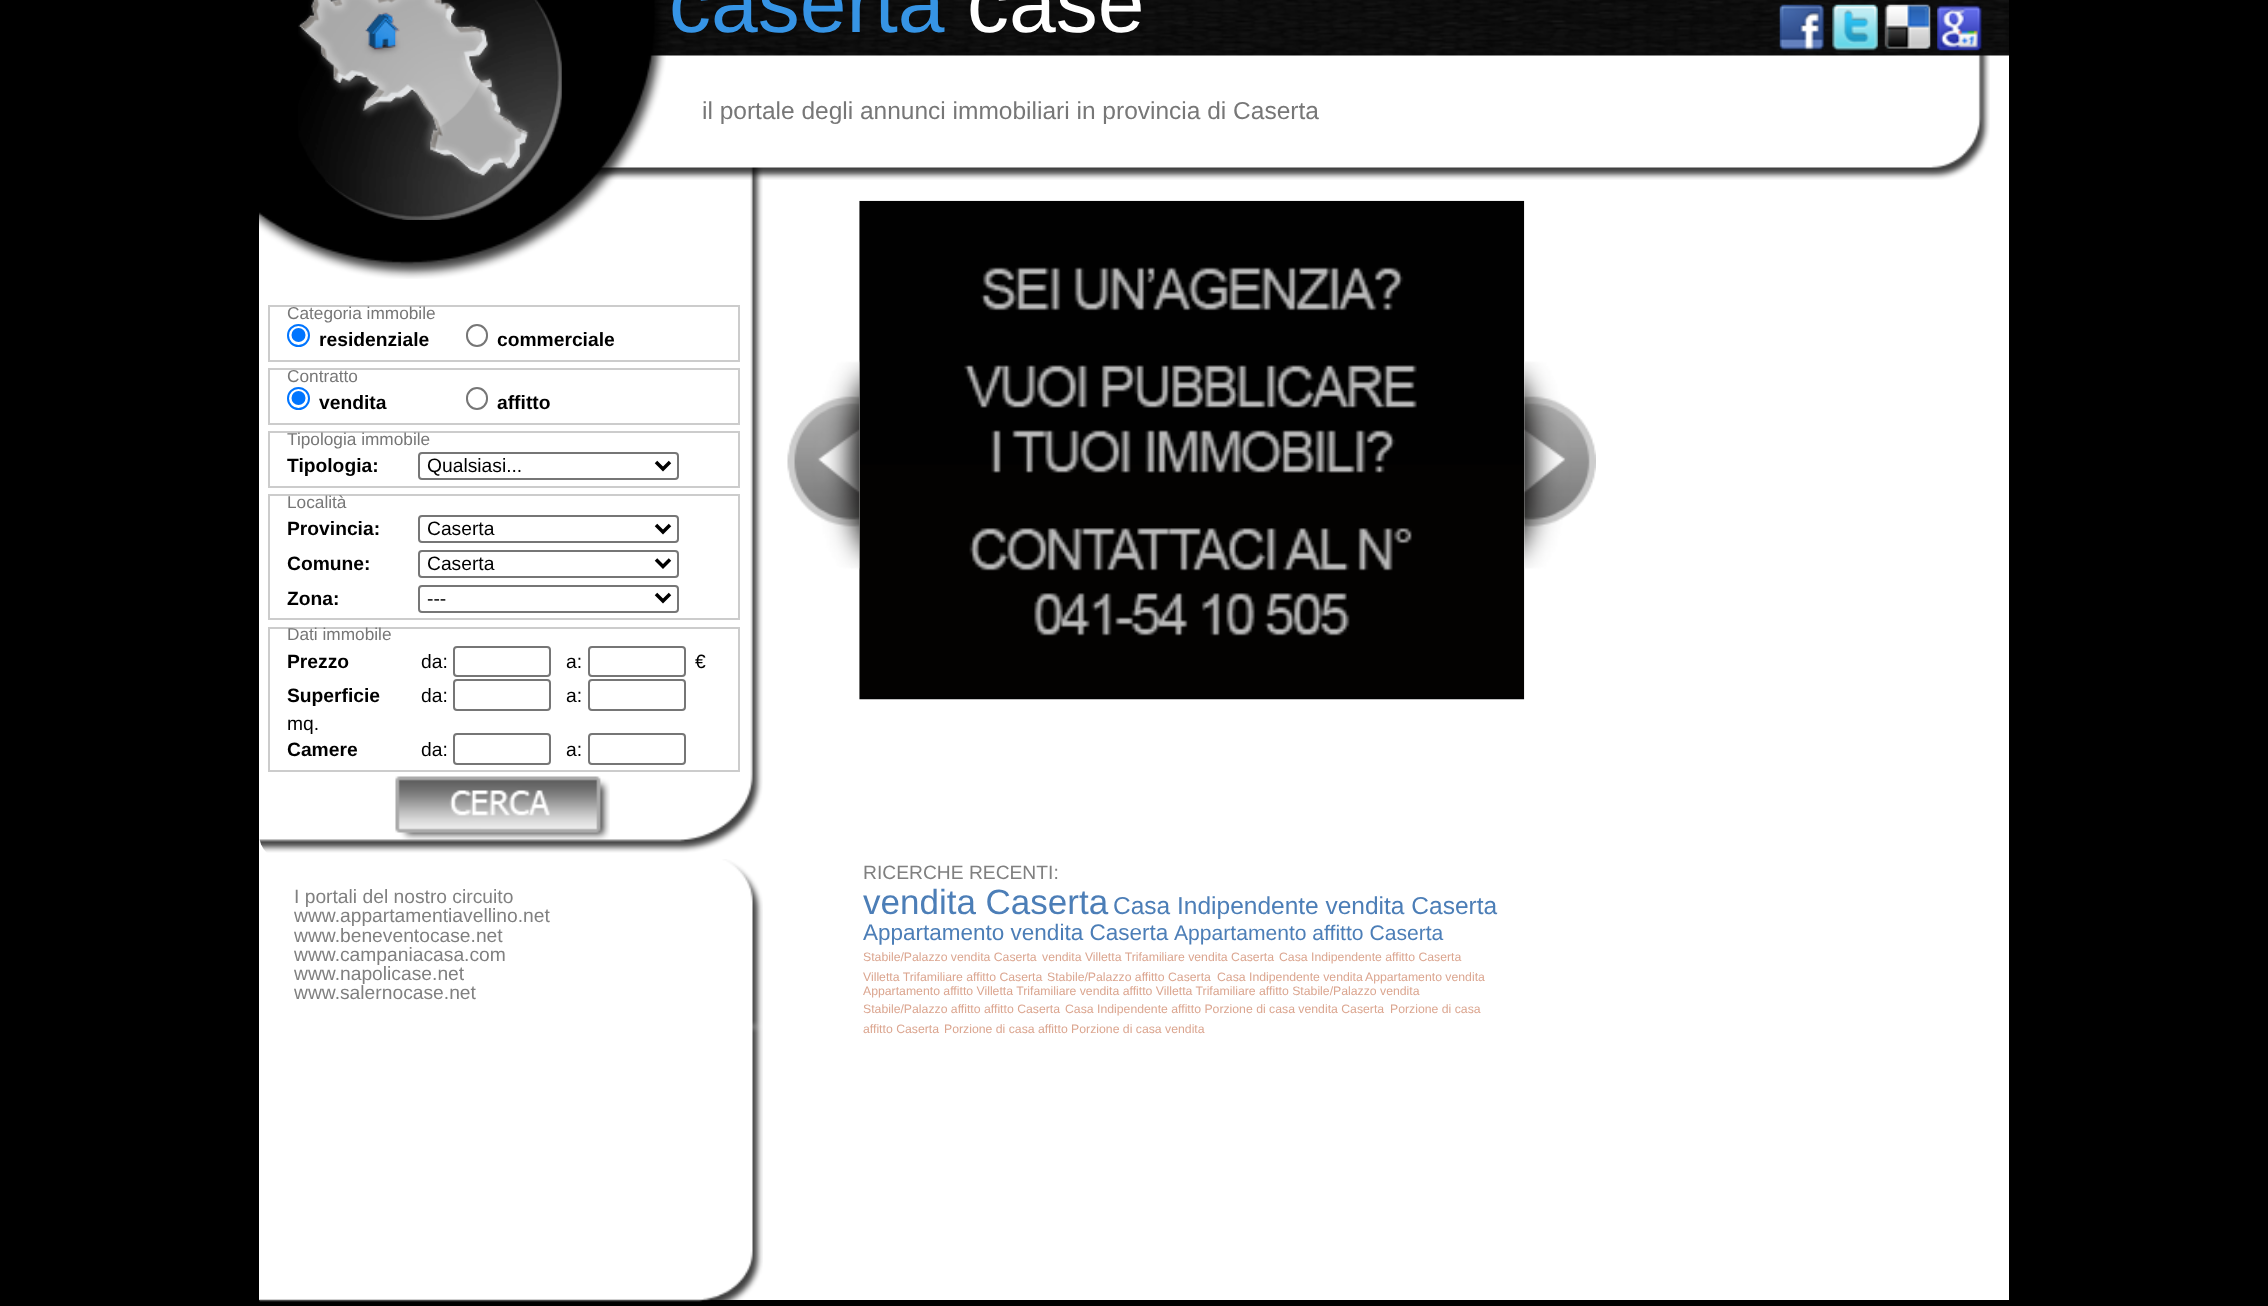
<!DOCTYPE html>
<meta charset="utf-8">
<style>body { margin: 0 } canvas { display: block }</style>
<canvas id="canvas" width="2268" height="1306"></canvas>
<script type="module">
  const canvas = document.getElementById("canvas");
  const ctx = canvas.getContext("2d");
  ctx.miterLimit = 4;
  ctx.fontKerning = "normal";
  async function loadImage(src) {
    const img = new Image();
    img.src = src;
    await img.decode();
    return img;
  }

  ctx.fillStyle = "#000000";
  ctx.fillRect(0, 0, 2268, 1306);
  ctx.fillStyle = "#ffffff";
  ctx.fillRect(259, 55, 1750, 1245);
  ctx.drawImage(await loadImage("img9.png"), 259, 167, 504, 686);
  ctx.drawImage(await loadImage("img8.png"), 589, 55, 1401, 125);
  ctx.drawImage(await loadImage("img3.png"), 650, 0, 1359, 56);
  ctx.drawImage(await loadImage("img1.png"), 259, 0, 407, 279);
  ctx.drawImage(await loadImage("img2.png"), 298, 0, 264, 220);
  ctx.font = "84px Liberation Sans";
  ctx.fillStyle = "#3694e5";
  ctx.fillText("caserta", 669, 32);
  ctx.fillStyle = "#ffffff";
  ctx.fillText("case", 967, 32);
  ctx.drawImage(await loadImage("img4.png"), 1779, 4, 46, 47);
  ctx.drawImage(await loadImage("img5.png"), 1832, 4, 46, 47);
  ctx.drawImage(await loadImage("img6.png"), 1884, 4, 47, 46);
  ctx.drawImage(await loadImage("img7.png"), 1937, 4, 46, 47);
  ctx.font = "24.5px Liberation Sans";
  ctx.fillStyle = "#777777";
  ctx.fillText("il portale degli annunci immobiliari in provincia di Caserta", 702, 119);
  ctx.strokeStyle = "#cccccc";
  ctx.lineWidth = 2;
  ctx.strokeRect(269, 306, 470, 55);
  ctx.font = "17.25px Liberation Sans";
  ctx.fillText("Categoria immobile", 287, 319);
  ctx.beginPath();
  ctx.arc(298.5, 335.5, 10.5, 0, Math.PI * 2);
  ctx.strokeStyle = "#0075ff";
  ctx.stroke();
  ctx.fillStyle = "#0075ff";
  ctx.beginPath();
  ctx.arc(298.5, 335, 7, 0, Math.PI * 2);
  ctx.fill();
  ctx.font = "bold 19.25px Liberation Sans";
  ctx.fillStyle = "#000000";
  ctx.fillText("residenziale", 319, 346);
  ctx.beginPath();
  ctx.roundRect(467, 325, 20, 21, 10);
  ctx.strokeStyle = "#767676";
  ctx.stroke();
  ctx.fillText("commerciale", 497, 346);
  ctx.strokeStyle = "#cccccc";
  ctx.strokeRect(269, 369, 470, 55);
  ctx.font = "17.25px Liberation Sans";
  ctx.fillStyle = "#777777";
  ctx.fillText("Contratto", 287, 382);
  ctx.beginPath();
  ctx.arc(298.5, 398.5, 10.5, 0, Math.PI * 2);
  ctx.strokeStyle = "#0075ff";
  ctx.stroke();
  ctx.fillStyle = "#0075ff";
  ctx.beginPath();
  ctx.arc(298.5, 398, 7, 0, Math.PI * 2);
  ctx.fill();
  ctx.font = "bold 19.25px Liberation Sans";
  ctx.fillStyle = "#000000";
  ctx.fillText("vendita", 319, 409);
  ctx.beginPath();
  ctx.roundRect(467, 388, 20, 21, 10);
  ctx.strokeStyle = "#767676";
  ctx.stroke();
  ctx.fillText("affitto", 497, 409);
  ctx.strokeStyle = "#cccccc";
  ctx.strokeRect(269, 432, 470, 55);
  ctx.font = "17.25px Liberation Sans";
  ctx.fillStyle = "#777777";
  ctx.fillText("Tipologia immobile", 287, 445);
  ctx.font = "bold 19.25px Liberation Sans";
  ctx.fillStyle = "#000000";
  ctx.fillText("Tipologia:", 287, 472);
  ctx.beginPath();
  ctx.roundRect(419, 453, 259, 26, 3);
  ctx.strokeStyle = "#767676";
  ctx.stroke();
  ctx.beginPath();
  ctx.moveTo(656, 462);
  ctx.lineTo(663, 469);
  ctx.lineTo(670, 462);
  ctx.strokeStyle = "#000000";
  ctx.lineWidth = 3.5;
  ctx.stroke();
  ctx.font = "19.25px Liberation Sans";
  ctx.fillText("Qualsiasi...", 427, 472);
  ctx.strokeStyle = "#cccccc";
  ctx.lineWidth = 2;
  ctx.strokeRect(269, 495, 470, 124);
  ctx.font = "17.25px Liberation Sans";
  ctx.fillStyle = "#777777";
  ctx.fillText("Località", 287, 508);
  ctx.font = "bold 19.25px Liberation Sans";
  ctx.fillStyle = "#000000";
  ctx.fillText("Provincia:", 287, 535);
  ctx.beginPath();
  ctx.roundRect(419, 516, 259, 26, 3);
  ctx.strokeStyle = "#767676";
  ctx.stroke();
  ctx.beginPath();
  ctx.moveTo(656, 525);
  ctx.lineTo(663, 532);
  ctx.lineTo(670, 525);
  ctx.strokeStyle = "#000000";
  ctx.lineWidth = 3.5;
  ctx.stroke();
  ctx.font = "19.25px Liberation Sans";
  ctx.fillText("Caserta", 427, 535);
  ctx.font = "bold 19.25px Liberation Sans";
  ctx.fillText("Comune:", 287, 570);
  ctx.beginPath();
  ctx.roundRect(419, 551, 259, 26, 3);
  ctx.strokeStyle = "#767676";
  ctx.lineWidth = 2;
  ctx.stroke();
  ctx.beginPath();
  ctx.moveTo(656, 559.5);
  ctx.lineTo(663, 566.5);
  ctx.lineTo(670, 559.5);
  ctx.strokeStyle = "#000000";
  ctx.lineWidth = 3.5;
  ctx.stroke();
  ctx.font = "19.25px Liberation Sans";
  ctx.fillText("Caserta", 427, 570);
  ctx.font = "bold 19.25px Liberation Sans";
  ctx.fillText("Zona:", 287, 605);
  ctx.beginPath();
  ctx.roundRect(419, 586, 259, 26, 3);
  ctx.strokeStyle = "#767676";
  ctx.lineWidth = 2;
  ctx.stroke();
  ctx.beginPath();
  ctx.moveTo(656, 594);
  ctx.lineTo(663, 601);
  ctx.lineTo(670, 594);
  ctx.strokeStyle = "#000000";
  ctx.lineWidth = 3.5;
  ctx.stroke();
  ctx.font = "19.25px Liberation Sans";
  ctx.fillText("---", 427, 605);
  ctx.strokeStyle = "#cccccc";
  ctx.lineWidth = 2;
  ctx.strokeRect(269, 628, 470, 143);
  ctx.font = "17.25px Liberation Sans";
  ctx.fillStyle = "#777777";
  ctx.fillText("Dati immobile", 287, 640);
  ctx.font = "bold 19.25px Liberation Sans";
  ctx.fillStyle = "#000000";
  ctx.fillText("Prezzo", 287, 668);
  ctx.font = "19.25px Liberation Sans";
  ctx.fillText("da:", 421, 668);
  ctx.beginPath();
  ctx.roundRect(454, 647, 96, 29, 3);
  ctx.strokeStyle = "#767676";
  ctx.stroke();
  ctx.fillText("a:", 566, 668);
  ctx.beginPath();
  ctx.roundRect(589, 647, 96, 29, 3);
  ctx.stroke();
  ctx.fillText("€", 695, 668);
  ctx.font = "bold 19.25px Liberation Sans";
  ctx.fillText("Superficie", 287, 702);
  ctx.font = "19.25px Liberation Sans";
  ctx.fillText("da:", 421, 702);
  ctx.beginPath();
  ctx.roundRect(454, 680, 96, 30, 3);
  ctx.stroke();
  ctx.fillText("a:", 566, 702);
  ctx.beginPath();
  ctx.roundRect(589, 680, 96, 30, 3);
  ctx.stroke();
  ctx.fillText("mq.", 287, 730);
  ctx.font = "bold 19.25px Liberation Sans";
  ctx.fillText("Camere", 287, 756);
  ctx.font = "19.25px Liberation Sans";
  ctx.fillText("da:", 421, 756);
  ctx.beginPath();
  ctx.roundRect(454, 734, 96, 30, 3);
  ctx.stroke();
  ctx.fillText("a:", 566, 756);
  ctx.beginPath();
  ctx.roundRect(589, 734, 96, 30, 3);
  ctx.stroke();
  ctx.drawImage(await loadImage("img10.png"), 395, 776, 215, 64);
  ctx.drawImage(await loadImage("img12.png"), 859, 200, 666, 500);
  ctx.drawImage(await loadImage("img11.png"), 787, 360, 73, 210);
  ctx.drawImage(await loadImage("img13.png"), 1524, 361, 72, 208);
  ctx.drawImage(await loadImage("img14.png"), 259, 859, 504, 443);
  ctx.fillStyle = "#808080";
  ctx.fillText("I portali del nostro circuito", 294, 903);
  ctx.fillText("www.appartamentiavellino.net", 294, 922);
  ctx.fillText("www.beneventocase.net", 294, 942);
  ctx.fillText("www.campaniacasa.com", 294, 961);
  ctx.fillText("www.napolicase.net", 294, 980);
  ctx.fillText("www.salernocase.net", 294, 999);
  ctx.fillText("RICERCHE RECENTI:", 863, 879);
  ctx.font = "35px Liberation Sans";
  ctx.fillStyle = "#4c7eb7";
  ctx.fillText("vendita Caserta", 863, 914);
  ctx.font = "24.5px Liberation Sans";
  ctx.fillText("Casa Indipendente vendita Caserta", 1113, 914);
  ctx.font = "22.5px Liberation Sans";
  ctx.fillText("Appartamento vendita Caserta", 863, 940);
  ctx.font = "21.1px Liberation Sans";
  ctx.fillText("Appartamento affitto Caserta", 1174, 940);
  ctx.font = "12.25px Liberation Sans";
  ctx.fillStyle = "#dba58f";
  ctx.fillText("Stabile/Palazzo vendita Caserta", 863, 961);
  ctx.fillText("vendita Villetta Trifamiliare vendita Caserta", 1042, 961);
  ctx.fillText("Casa Indipendente affitto Caserta", 1279, 961);
  ctx.fillText("Villetta Trifamiliare affitto Caserta", 863, 981);
  ctx.fillText("Stabile/Palazzo affitto Caserta", 1047, 981);
  ctx.fillText("Casa Indipendente vendita", 1217, 981);
  ctx.fillText("Appartamento vendita", 1365, 981);
  ctx.fillText("Appartamento affitto Villetta Trifamiliare vendita affitto Villetta Trifamiliare affitto Stabile/Palazzo vendita", 863, 995);
  ctx.fillText("Stabile/Palazzo affitto affitto Caserta", 863, 1013);
  ctx.fillText("Casa Indipendente affitto Porzione di casa vendita Caserta", 1065, 1013);
  ctx.fillText("Porzione di casa", 1390, 1013);
  ctx.fillText("affitto Caserta", 863, 1033);
  ctx.fillText("Porzione di casa affitto Porzione di casa vendita", 944, 1033);
</script>
